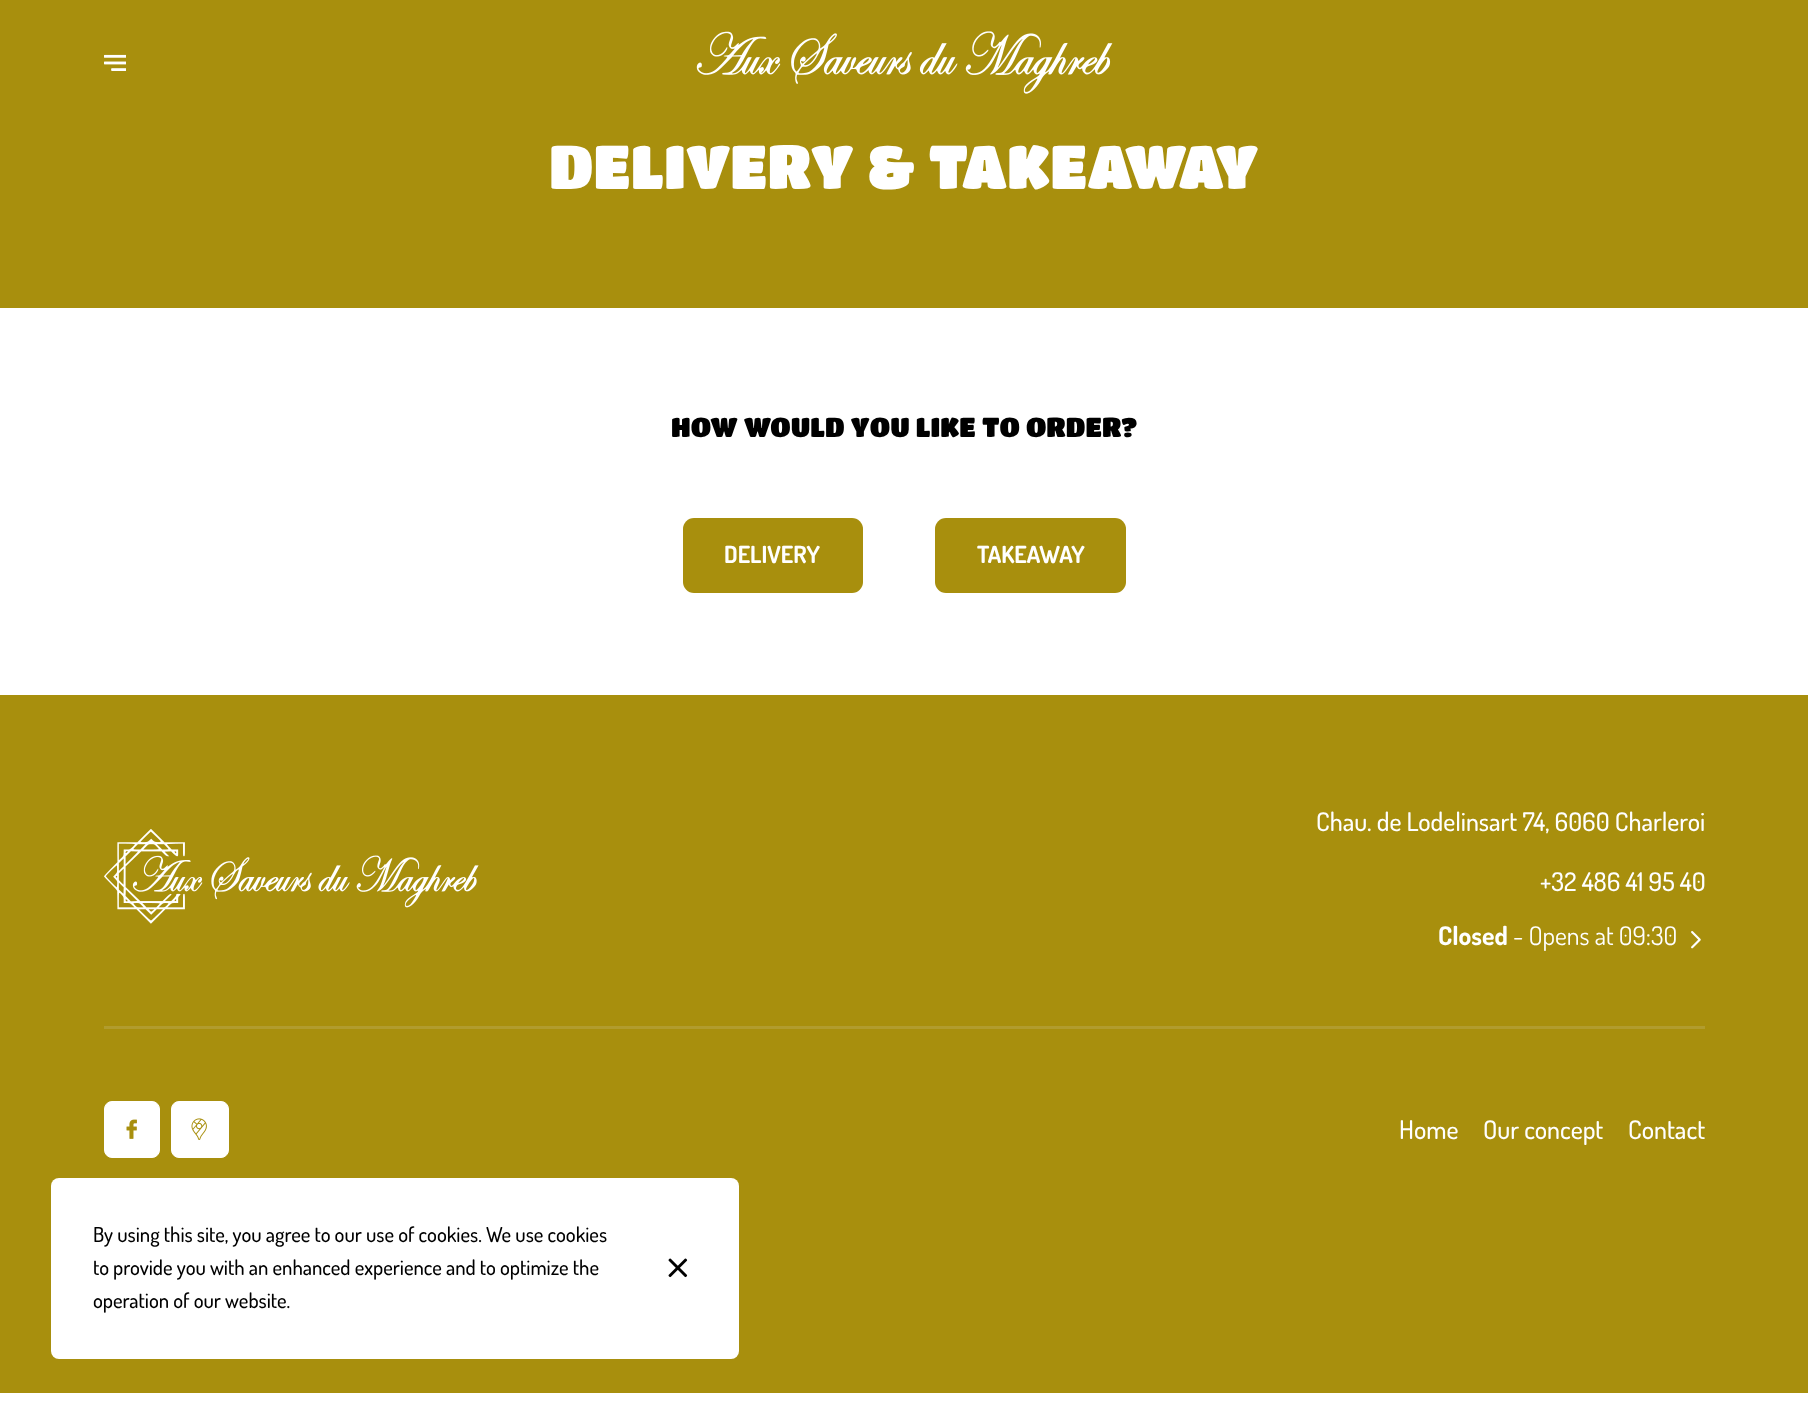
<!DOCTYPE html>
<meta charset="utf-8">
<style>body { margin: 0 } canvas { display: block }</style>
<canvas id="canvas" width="1808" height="1410"></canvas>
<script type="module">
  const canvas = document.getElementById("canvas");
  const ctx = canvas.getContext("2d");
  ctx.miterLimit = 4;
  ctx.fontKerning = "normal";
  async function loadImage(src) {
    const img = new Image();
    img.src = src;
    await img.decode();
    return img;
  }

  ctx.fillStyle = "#ffffff";
  ctx.fillRect(0, 0, 1808, 1410);
  ctx.fillStyle = "#a88f0d";
  ctx.fillRect(0, 0, 1808, 308);
  ctx.drawImage(await loadImage("img1.png"), 104, 54, 22, 17);
  ctx.drawImage(await loadImage("img2.png"), 696, 31, 417, 63);
  ctx.font = "61px Titan One";
  ctx.fillStyle = "#ffffff";
  ctx.fillText("DELIVERY & TAKEAWAY", 549, 189);
  ctx.font = "27px Titan One";
  ctx.fillStyle = "#000000";
  ctx.fillText("HOW WOULD YOU LIKE TO ORDER?", 671, 437);
  ctx.fillStyle = "#a88f0d";
  ctx.beginPath();
  ctx.roundRect(683, 518, 180, 75, 11);
  ctx.fill();
  ctx.font = "bold 23.5px Dosis";
  ctx.fillStyle = "#ffffff";
  ctx.fillText("DELIVERY", 724, 563);
  ctx.fillStyle = "#a88f0d";
  ctx.beginPath();
  ctx.roundRect(935, 518, 191, 75, 11);
  ctx.fill();
  ctx.fillStyle = "#ffffff";
  ctx.fillText("TAKEAWAY", 977, 563);
  ctx.fillStyle = "#a88f0d";
  ctx.fillRect(0, 695, 1808, 698);
  ctx.drawImage(await loadImage("img3.png"), 104, 829, 375, 95);
  ctx.font = "500 25.75px Dosis";
  ctx.fillStyle = "#ffffff";
  ctx.fillText("Chau. de Lodelinsart 74, 6060 Charleroi", 1316, 831);
  ctx.fillText("+32 486 41 95 40", 1540, 891);
  ctx.font = "bold 25.75px Dosis";
  ctx.fillText("Closed", 1438, 945);
  ctx.font = "25.75px Dosis";
  ctx.fillText("- Opens at 09:30", 1513, 945);
  ctx.drawImage(await loadImage("img4.png"), 1691, 931, 10, 18);
  ctx.fillStyle = "#b19c2e";
  ctx.fillRect(104, 1026, 1601, 3);
  ctx.fillStyle = "#ffffff";
  ctx.beginPath();
  ctx.roundRect(104.5, 1101.5, 55, 56, 7.5);
  ctx.fill();
  ctx.strokeStyle = "#ffffff";
  ctx.stroke();
  ctx.drawImage(await loadImage("img5.png"), 126, 1119, 11, 20);
  ctx.beginPath();
  ctx.roundRect(171.5, 1101.5, 57, 56, 7.5);
  ctx.fill();
  ctx.stroke();
  ctx.drawImage(await loadImage("img6.png"), 191, 1118, 16, 22);
  ctx.font = "500 25.75px Dosis";
  ctx.fillText("Home", 1399, 1139);
  ctx.fillText("Our concept", 1483, 1139);
  ctx.fillText("Contact", 1628, 1139);
  ctx.beginPath();
  ctx.roundRect(51, 1178, 688, 181, 8);
  ctx.fill();
  ctx.font = "500 20.6px Dosis";
  ctx.fillStyle = "#000000";
  ctx.fillText("By using this site, you agree to our use of cookies. We use cookies", 93, 1242);
  ctx.fillText("to provide you with an enhanced experience and to optimize the", 93, 1275);
  ctx.fillText("operation of our website.", 93, 1308);
  ctx.drawImage(await loadImage("img7.png"), 668, 1258, 20, 20);
</script>
